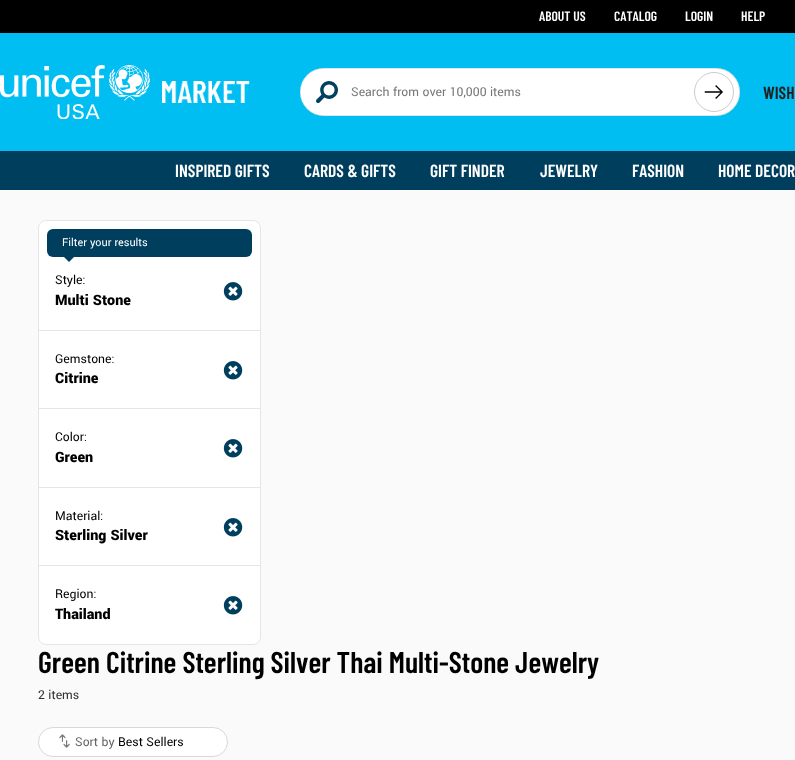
<!DOCTYPE html>
<meta charset="utf-8">
<style>body { margin: 0 } canvas { display: block }</style>
<canvas id="canvas" width="795" height="760"></canvas>
<script type="module">
  const canvas = document.getElementById("canvas");
  const ctx = canvas.getContext("2d");
  ctx.miterLimit = 4;
  ctx.fontKerning = "none";
  async function loadImage(src) {
    const img = new Image();
    img.src = src;
    await img.decode();
    return img;
  }

  ctx.fillStyle = "#fafafa";
  ctx.fillRect(0, 0, 795, 760);
  ctx.fillStyle = "#00bdf2";
  ctx.fillRect(0, 33, 795, 118);
  ctx.fillStyle = "#000000";
  ctx.fillRect(0, 0, 795, 33);
  ctx.font = "600 13.6px Barlow Condensed";
  ctx.fillStyle = "#ffffff";
  ctx.fillText("ABOUT US", 539, 21);
  ctx.fillText("CATALOG", 614, 21);
  ctx.fillText("LOGIN", 685, 21);
  ctx.fillText("HELP", 741, 21);
  ctx.drawImage(await loadImage("img1.png"), 0, 65, 150, 54);
  ctx.drawImage(await loadImage("img2.png"), 162, 81, 88, 22);
  ctx.beginPath();
  ctx.roundRect(300, 68, 440, 48, 24);
  ctx.fill();
  ctx.beginPath();
  ctx.roundRect(300.5, 68.5, 439, 47, 23.5);
  ctx.strokeStyle = "rgba(0, 0, 0, 0.1)";
  ctx.stroke();
  ctx.beginPath();
  ctx.roundRect(301, 69, 393, 46, [23, 0, 0, 23]);
  ctx.fill();
  ctx.font = "22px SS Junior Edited";
  ctx.fillStyle = "#004060";
  ctx.fillText("🔎", 316, 103);
  ctx.font = "13.6px Yantramanav";
  ctx.fillStyle = "#777777";
  ctx.fillText("Search from over 10,000 items", 351, 96);
  ctx.beginPath();
  ctx.arc(714, 92, 19.5, 0, Math.PI * 2);
  ctx.strokeStyle = "#cccccc";
  ctx.stroke();
  ctx.drawImage(await loadImage("img3.png"), 704, 85, 19, 14);
  ctx.font = "600 17.5px Barlow Condensed";
  ctx.fillStyle = "#212121";
  ctx.fillText("WISH", 763, 99);
  ctx.fillStyle = "#003e5e";
  ctx.fillRect(0, 151, 795, 39);
  ctx.fillStyle = "#ffffff";
  ctx.fillText("INSPIRED GIFTS", 175, 177);
  ctx.fillText("CARDS & GIFTS", 304, 177);
  ctx.fillText("GIFT FINDER", 430, 177);
  ctx.fillText("JEWELRY", 540, 177);
  ctx.fillText("FASHION", 632, 177);
  ctx.fillText("HOME DECOR", 718, 177);
  ctx.beginPath();
  ctx.roundRect(38.5, 220.5, 222, 424, 7.5);
  ctx.fill();
  ctx.strokeStyle = "#e5e5e5";
  ctx.stroke();
  ctx.fillStyle = "#003e5e";
  ctx.beginPath();
  ctx.roundRect(47, 229, 205, 28, 6);
  ctx.fill();
  ctx.font = "12px Yantramanav";
  ctx.fillStyle = "#ffffff";
  ctx.fillText("Filter your results", 62, 246);
  ctx.fillStyle = "#003e5e";
  ctx.beginPath();
  ctx.moveTo(62, 255);
  ctx.lineTo(76, 255);
  ctx.lineTo(69, 262);
  ctx.closePath();
  ctx.fill();
  ctx.font = "13.6px Yantramanav";
  ctx.fillStyle = "#000000";
  ctx.fillText("Style:", 55, 284);
  ctx.font = "900 16px Yantramanav";
  ctx.fillText("Multi Stone", 55, 305);
  ctx.drawImage(await loadImage("img4.png"), 223, 282, 20, 19);
  ctx.fillStyle = "#e6e6e6";
  ctx.fillRect(39, 330, 221, 1);
  ctx.font = "13.6px Yantramanav";
  ctx.fillStyle = "#000000";
  ctx.fillText("Gemstone:", 55, 363);
  ctx.font = "900 16px Yantramanav";
  ctx.fillText("Citrine", 55, 383);
  ctx.drawImage(await loadImage("img4.png"), 223, 361, 20, 19);
  ctx.fillStyle = "#e6e6e6";
  ctx.fillRect(39, 408, 221, 1);
  ctx.font = "13.6px Yantramanav";
  ctx.fillStyle = "#000000";
  ctx.fillText("Color:", 55, 441);
  ctx.font = "900 16px Yantramanav";
  ctx.fillText("Green", 55, 462);
  ctx.drawImage(await loadImage("img4.png"), 223, 439, 20, 19);
  ctx.fillStyle = "#e6e6e6";
  ctx.fillRect(39, 487, 221, 1);
  ctx.font = "13.6px Yantramanav";
  ctx.fillStyle = "#000000";
  ctx.fillText("Material:", 55, 520);
  ctx.font = "900 16px Yantramanav";
  ctx.fillText("Sterling Silver", 55, 540);
  ctx.drawImage(await loadImage("img4.png"), 223, 518, 20, 19);
  ctx.fillStyle = "#e6e6e6";
  ctx.fillRect(39, 565, 221, 1);
  ctx.font = "13.6px Yantramanav";
  ctx.fillStyle = "#000000";
  ctx.fillText("Region:", 55, 598);
  ctx.font = "900 16px Yantramanav";
  ctx.fillText("Thailand", 55, 619);
  ctx.drawImage(await loadImage("img4.png"), 223, 596, 20, 19);
  ctx.font = "600 30px Barlow Condensed";
  ctx.fillText("Green Citrine Sterling Silver Thai Multi-Stone Jewelry", 38, 673);
  ctx.font = "13.6px Yantramanav";
  ctx.fillStyle = "#323232";
  ctx.fillText("2 items", 38, 699);
  ctx.fillStyle = "#ffffff";
  ctx.beginPath();
  ctx.roundRect(38.5, 727.5, 189, 29, 14.5);
  ctx.fill();
  ctx.strokeStyle = "#d9d9d9";
  ctx.stroke();
  ctx.drawImage(await loadImage("img5.png"), 59, 734, 11, 14);
  ctx.fillStyle = "#666666";
  ctx.fillText("Sort by", 75, 746);
  ctx.fillStyle = "#000000";
  ctx.fillText("Best Sellers", 118, 746);
</script>
